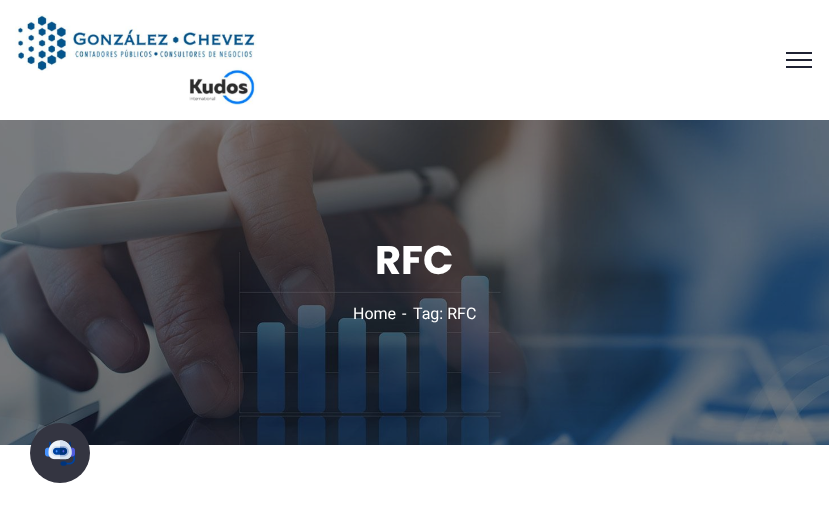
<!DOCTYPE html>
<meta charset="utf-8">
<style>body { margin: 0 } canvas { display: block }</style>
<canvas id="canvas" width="829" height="513"></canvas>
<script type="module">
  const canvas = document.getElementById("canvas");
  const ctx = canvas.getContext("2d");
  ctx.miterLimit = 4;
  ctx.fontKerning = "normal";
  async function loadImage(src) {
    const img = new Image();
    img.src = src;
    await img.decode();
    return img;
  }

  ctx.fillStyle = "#ffffff";
  ctx.fillRect(0, 0, 829, 513);
  ctx.drawImage(await loadImage("img1.png"), 15, 15, 242, 90);
  ctx.fillStyle = "#1f2233";
  ctx.fillRect(786, 52, 26, 2);
  ctx.fillRect(786, 59, 26, 2);
  ctx.fillRect(786, 66, 26, 2);
  ctx.drawImage(await loadImage("img2.png"), 0, 120, 829, 325);
  ctx.font = "bold 40px Poppins";
  ctx.fillStyle = "#ffffff";
  ctx.fillText("RFC", 375, 274);
  ctx.font = "16px Roboto";
  ctx.fillText("Home", 353, 319);
  ctx.fillText("-", 402, 319);
  ctx.fillText("Tag: RFC", 413, 319);
  ctx.fillStyle = "#343541";
  ctx.beginPath();
  ctx.arc(60, 453, 30, 0, Math.PI * 2);
  ctx.fill();
  ctx.drawImage(await loadImage("img3.png"), 45, 440, 30, 26);
</script>
